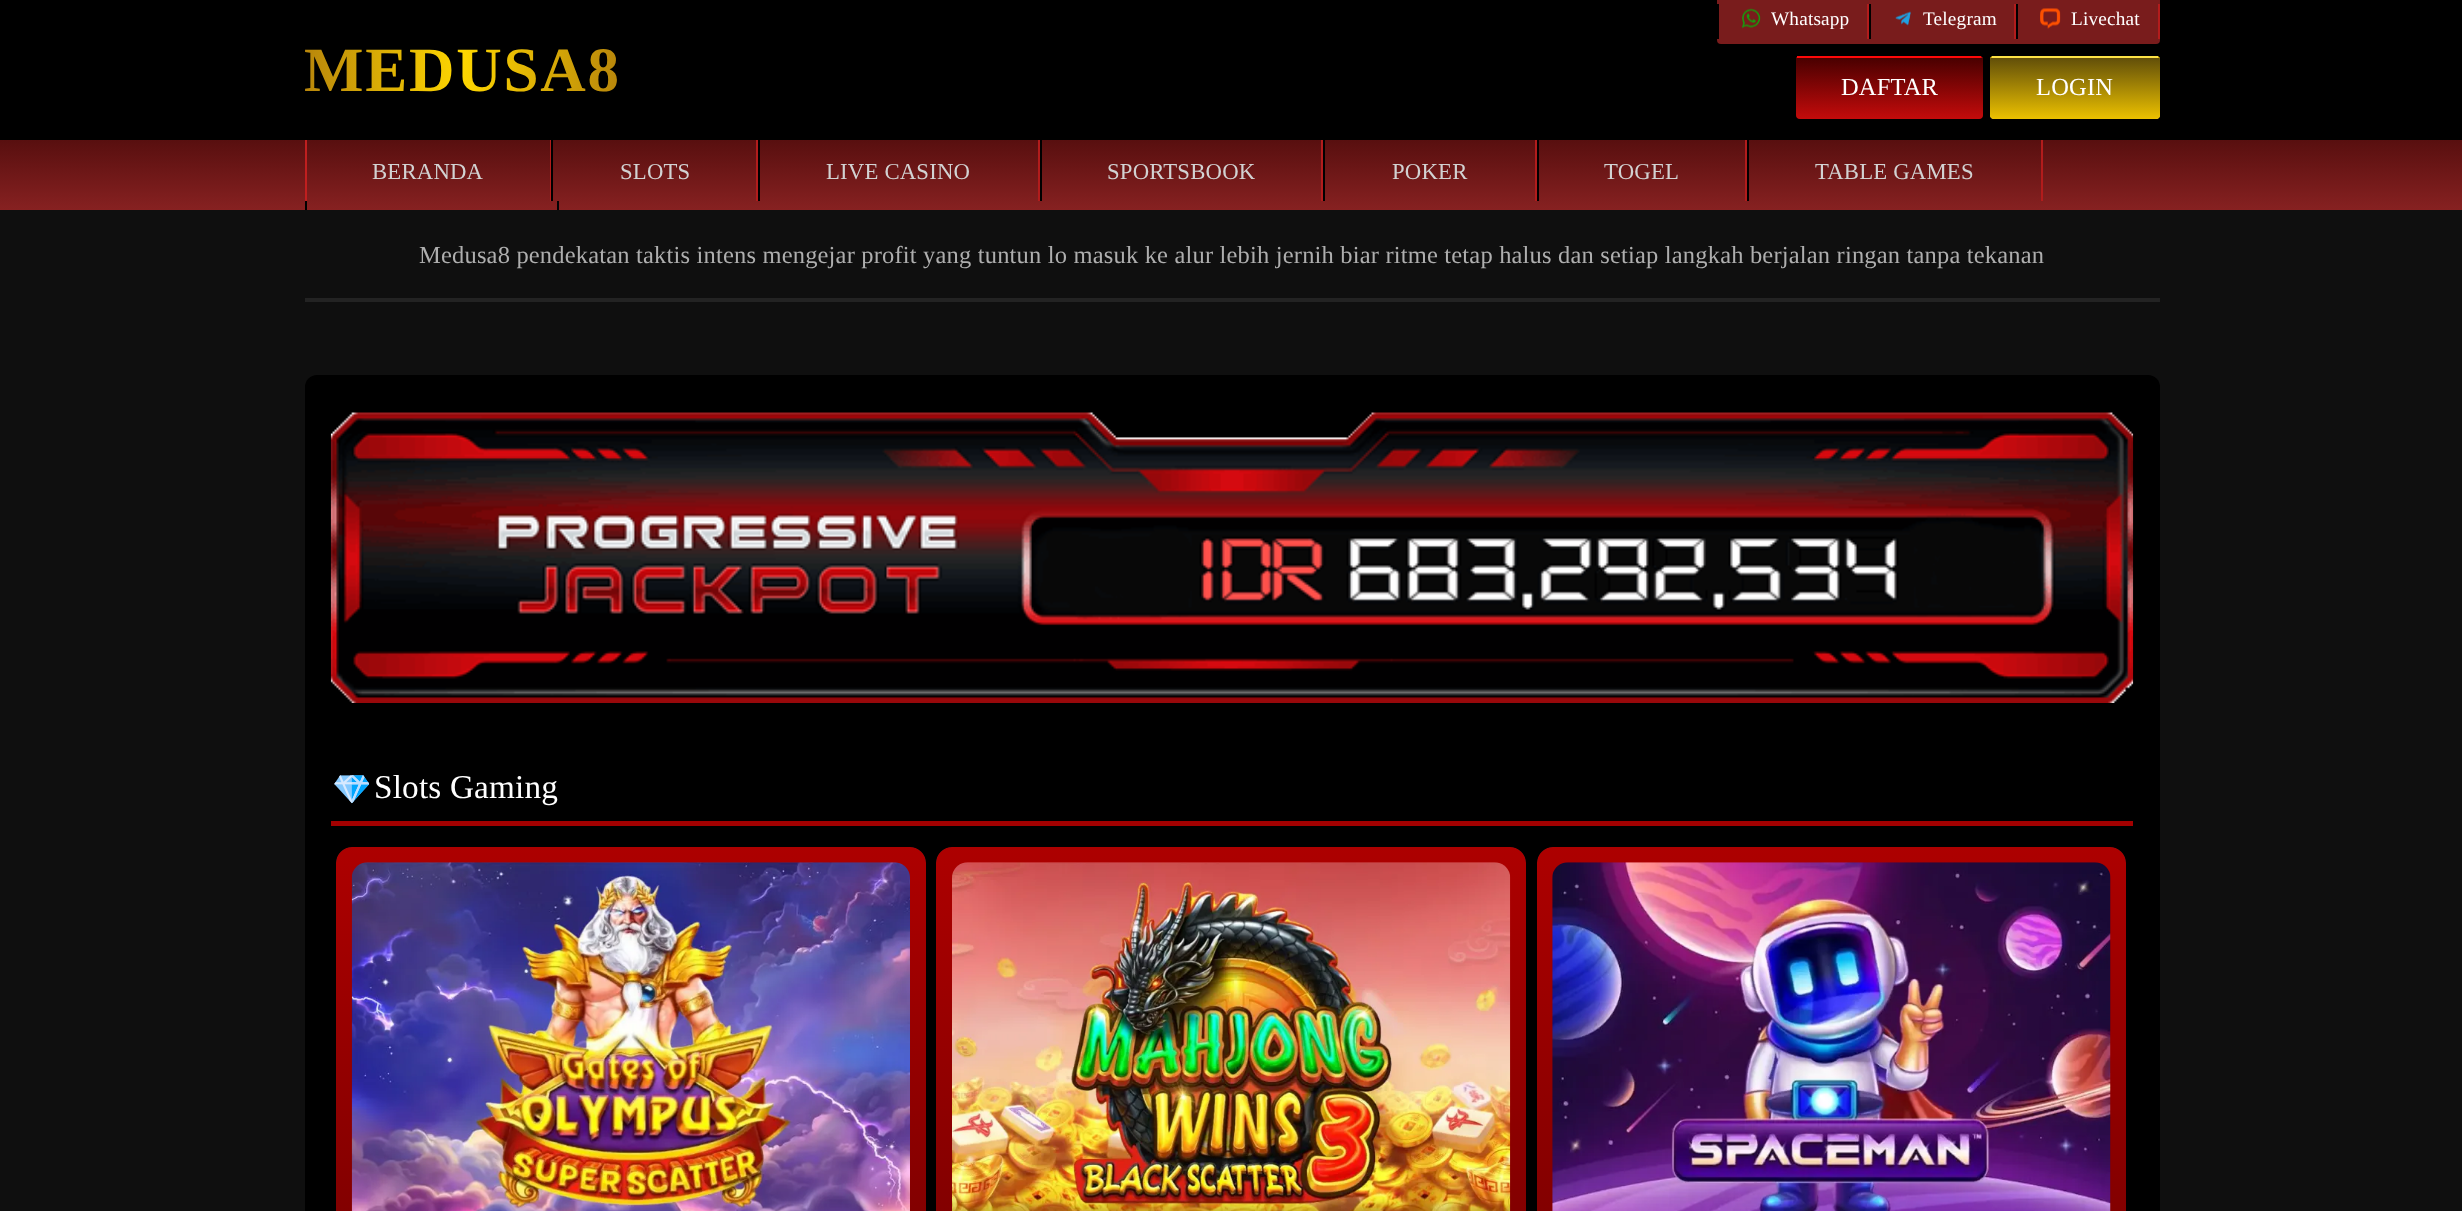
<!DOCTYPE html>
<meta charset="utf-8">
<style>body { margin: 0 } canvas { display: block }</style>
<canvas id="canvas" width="2462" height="1211"></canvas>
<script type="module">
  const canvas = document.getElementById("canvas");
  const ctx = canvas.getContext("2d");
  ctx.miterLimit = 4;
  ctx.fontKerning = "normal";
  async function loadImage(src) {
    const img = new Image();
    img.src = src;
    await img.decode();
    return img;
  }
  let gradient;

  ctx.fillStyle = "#0f0f0f";
  ctx.fillRect(0, 0, 2462, 1211);
  ctx.fillStyle = "#000000";
  ctx.fillRect(0, 0, 2462, 140);
  ctx.save();
  ctx.beginPath();
  ctx.rect(305, 23, 316, 94);
  ctx.clip();
  ctx.letterSpacing = "1.75px";
  ctx.font = "bold 63px Liberation Serif";
  gradient = ctx.createLinearGradient(304, 70, 620, 70);
  gradient.addColorStop(0, "#b8860b");
  gradient.addColorStop(0.5, "#ffd700");
  gradient.addColorStop(1, "#b8860b");
  ctx.fillStyle = gradient;
  ctx.fillText("MEDUSA8", 304, 91);
  ctx.restore();
  ctx.fillStyle = "#791c1c";
  ctx.beginPath();
  ctx.roundRect(1717, 0, 443, 44, [0, 0, 4, 4]);
  ctx.fill();
  ctx.fillStyle = "#b21c1c";
  ctx.fillRect(1867, 4, 2, 35);
  ctx.fillStyle = "#000000";
  ctx.fillRect(1717, 4, 2, 35);
  ctx.drawImage(await loadImage("img1.png"), 1742, 8, 19, 21);
  ctx.letterSpacing = "0.18px";
  ctx.font = "19.25px Liberation Serif";
  ctx.fillStyle = "#ffffff";
  ctx.fillText("Whatsapp", 1771, 25);
  ctx.fillStyle = "#b21c1c";
  ctx.fillRect(2014, 4, 2, 35);
  ctx.fillStyle = "#000000";
  ctx.fillRect(1869, 4, 2, 35);
  ctx.drawImage(await loadImage("img2.png"), 1895, 11, 16, 15);
  ctx.fillStyle = "#ffffff";
  ctx.fillText("Telegram", 1923, 25);
  ctx.fillStyle = "#b21c1c";
  ctx.fillRect(2158, 4, 2, 35);
  ctx.fillStyle = "#000000";
  ctx.fillRect(2016, 4, 2, 35);
  ctx.drawImage(await loadImage("img3.png"), 2040, 8, 21, 21);
  ctx.fillStyle = "#ffffff";
  ctx.fillText("Livechat", 2071, 25);
  ctx.fillStyle = "#820000";
  ctx.beginPath();
  ctx.roundRect(1796, 56, 187, 63, 4);
  ctx.fill();
  ctx.save();
  ctx.beginPath();
  ctx.roundRect(1796, 56, 187, 63, 4);
  ctx.clip();
  gradient = ctx.createLinearGradient(1889, -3.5, 1889, 58);
  gradient.addColorStop(0, "#490000");
  gradient.addColorStop(1, "#c40b0b");
  ctx.fillStyle = gradient;
  ctx.fillRect(1796, 56, 187, 2);
  gradient = ctx.createLinearGradient(1889, 58, 1889, 119);
  gradient.addColorStop(0, "#490000");
  gradient.addColorStop(1, "#c40b0b");
  ctx.fillStyle = gradient;
  ctx.beginPath();
  ctx.roundRect(1796, 58, 187, 61, [0, 0, 4, 4]);
  ctx.fill();
  ctx.restore();
  ctx.fillStyle = "#ff0909";
  ctx.fillRect(1797, 56, 184, 2);
  ctx.font = "24.5px Liberation Serif";
  ctx.fillStyle = "#ffffff";
  ctx.fillText("DAFTAR", 1841, 95);
  ctx.fillStyle = "#f6d53d";
  ctx.beginPath();
  ctx.roundRect(1990, 56, 170, 63, 4);
  ctx.fill();
  ctx.save();
  ctx.beginPath();
  ctx.roundRect(1990, 56, 170, 63, 4);
  ctx.clip();
  gradient = ctx.createLinearGradient(2075, -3.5, 2075, 58);
  gradient.addColorStop(0, "#624f09");
  gradient.addColorStop(1, "#ecc100");
  ctx.fillStyle = gradient;
  ctx.fillRect(1990, 56, 170, 2);
  gradient = ctx.createLinearGradient(2075, 58, 2075, 119);
  gradient.addColorStop(0, "#624f09");
  gradient.addColorStop(1, "#ecc100");
  ctx.fillStyle = gradient;
  ctx.beginPath();
  ctx.roundRect(1990, 58, 170, 61, [0, 0, 4, 4]);
  ctx.fill();
  ctx.restore();
  ctx.fillStyle = "#fde246";
  ctx.fillRect(1992, 56, 166, 2);
  ctx.fillStyle = "#ffffff";
  ctx.fillText("LOGIN", 2036, 95);
  gradient = ctx.createLinearGradient(1231, 140, 1231, 263);
  gradient.addColorStop(0, "#580f0f");
  gradient.addColorStop(0.85, "#9e2a2a");
  ctx.fillStyle = gradient;
  ctx.fillRect(0, 140, 2462, 70);
  ctx.fillStyle = "#b21c1c";
  ctx.fillRect(550, 140, 1, 61);
  ctx.fillStyle = "#c01f1f";
  ctx.fillRect(305, 140, 2, 61);
  ctx.font = "22.75px Liberation Serif";
  ctx.fillStyle = "#d2d2d2";
  ctx.fillText("BERANDA", 372, 179);
  ctx.fillStyle = "#b21c1c";
  ctx.fillRect(756, 140, 2, 61);
  ctx.fillStyle = "#000000";
  ctx.fillRect(551, 140, 2, 61);
  ctx.fillStyle = "#d2d2d2";
  ctx.fillText("SLOTS", 620, 179);
  ctx.fillStyle = "#b21c1c";
  ctx.fillRect(1038, 140, 2, 61);
  ctx.fillStyle = "#000000";
  ctx.fillRect(758, 140, 2, 61);
  ctx.fillStyle = "#d2d2d2";
  ctx.fillText("LIVE CASINO", 826, 179);
  ctx.fillStyle = "#b21c1c";
  ctx.fillRect(1321, 140, 2, 61);
  ctx.fillStyle = "#000000";
  ctx.fillRect(1040, 140, 2, 61);
  ctx.fillStyle = "#d2d2d2";
  ctx.fillText("SPORTSBOOK", 1107, 179);
  ctx.fillStyle = "#b21c1c";
  ctx.fillRect(1535, 140, 2, 61);
  ctx.fillStyle = "#000000";
  ctx.fillRect(1323, 140, 2, 61);
  ctx.fillStyle = "#d2d2d2";
  ctx.fillText("POKER", 1392, 179);
  ctx.fillStyle = "#b21c1c";
  ctx.fillRect(1745, 140, 2, 61);
  ctx.fillStyle = "#000000";
  ctx.fillRect(1537, 140, 2, 61);
  ctx.fillStyle = "#d2d2d2";
  ctx.fillText("TOGEL", 1604, 179);
  ctx.fillStyle = "#b21c1c";
  ctx.fillRect(2041, 140, 2, 61);
  ctx.fillStyle = "#000000";
  ctx.fillRect(1747, 140, 2, 61);
  ctx.fillStyle = "#d2d2d2";
  ctx.fillText("TABLE GAMES", 1815, 179);
  ctx.fillStyle = "#000305";
  ctx.fillRect(557, 201, 2, 9);
  ctx.fillStyle = "#000000";
  ctx.fillRect(305, 201, 2, 9);
  ctx.font = "24.5px Liberation Serif";
  ctx.fillStyle = "#aeaeae";
  ctx.fillText("Medusa8 pendekatan taktis intens mengejar profit yang tuntun lo masuk ke alur lebih jernih biar ritme tetap halus dan setiap langkah berjalan ringan tanpa tekanan", 419, 263);
  ctx.fillStyle = "#232323";
  ctx.fillRect(305, 298, 1855, 4);
  ctx.fillStyle = "#000000";
  ctx.beginPath();
  ctx.roundRect(305, 375, 1855, 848, 12);
  ctx.fill();
  ctx.drawImage(await loadImage("img4.png"), 330, 412, 1804, 291);
  ctx.fillStyle = "#a20000";
  ctx.fillRect(331, 821, 1802, 5);
  ctx.drawImage(await loadImage("img5.png"), 334, 775, 35, 29);
  ctx.font = "33.25px Liberation Serif";
  ctx.fillStyle = "#ffffff";
  ctx.fillText("Slots Gaming", 374, 798);
  ctx.fillStyle = "#191919";
  ctx.beginPath();
  ctx.roundRect(336, 847, 590, 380, 16);
  ctx.fill();
  ctx.save();
  ctx.beginPath();
  ctx.roundRect(336, 847, 590, 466, 16);
  ctx.clip();
  gradient = ctx.createLinearGradient(631, 847, 631, 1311);
  gradient.addColorStop(0, "#ad0000");
  gradient.addColorStop(1, "#770000");
  ctx.fillStyle = gradient;
  ctx.beginPath();
  ctx.moveTo(352, 847);
  ctx.lineTo(910, 847);
  ctx.bezierCurveTo(919, 847, 926, 854, 926, 863);
  ctx.lineTo(926, 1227);
  ctx.lineTo(336, 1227);
  ctx.lineTo(336, 863);
  ctx.bezierCurveTo(336, 854, 343, 847, 352, 847);
  ctx.closePath();
  ctx.fill();
  ctx.restore();
  ctx.drawImage(await loadImage("img6.png"), 351, 862, 559, 349);
  ctx.beginPath();
  ctx.roundRect(936, 847, 590, 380, 16);
  ctx.fill();
  ctx.save();
  ctx.beginPath();
  ctx.roundRect(936, 847, 590, 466, 16);
  ctx.clip();
  gradient = ctx.createLinearGradient(1231, 847, 1231, 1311);
  gradient.addColorStop(0, "#ad0000");
  gradient.addColorStop(1, "#770000");
  ctx.fillStyle = gradient;
  ctx.beginPath();
  ctx.moveTo(952, 847);
  ctx.lineTo(1510, 847);
  ctx.bezierCurveTo(1519, 847, 1526, 854, 1526, 863);
  ctx.lineTo(1526, 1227);
  ctx.lineTo(936, 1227);
  ctx.lineTo(936, 863);
  ctx.bezierCurveTo(936, 854, 943, 847, 952, 847);
  ctx.closePath();
  ctx.fill();
  ctx.restore();
  ctx.drawImage(await loadImage("img7.png"), 952, 862, 559, 349);
  ctx.beginPath();
  ctx.roundRect(1537, 847, 589, 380, 16);
  ctx.fill();
  ctx.save();
  ctx.beginPath();
  ctx.roundRect(1537, 847, 589, 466, 16);
  ctx.clip();
  gradient = ctx.createLinearGradient(1831, 847, 1831, 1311);
  gradient.addColorStop(0, "#ad0000");
  gradient.addColorStop(1, "#770000");
  ctx.fillStyle = gradient;
  ctx.beginPath();
  ctx.moveTo(1553, 847);
  ctx.lineTo(2110, 847);
  ctx.bezierCurveTo(2119, 847, 2126, 854, 2126, 863);
  ctx.lineTo(2126, 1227);
  ctx.lineTo(1537, 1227);
  ctx.lineTo(1537, 863);
  ctx.bezierCurveTo(1537, 854, 1544, 847, 1553, 847);
  ctx.closePath();
  ctx.fill();
  ctx.restore();
  ctx.drawImage(await loadImage("img8.png"), 1552, 862, 559, 349);
</script>
